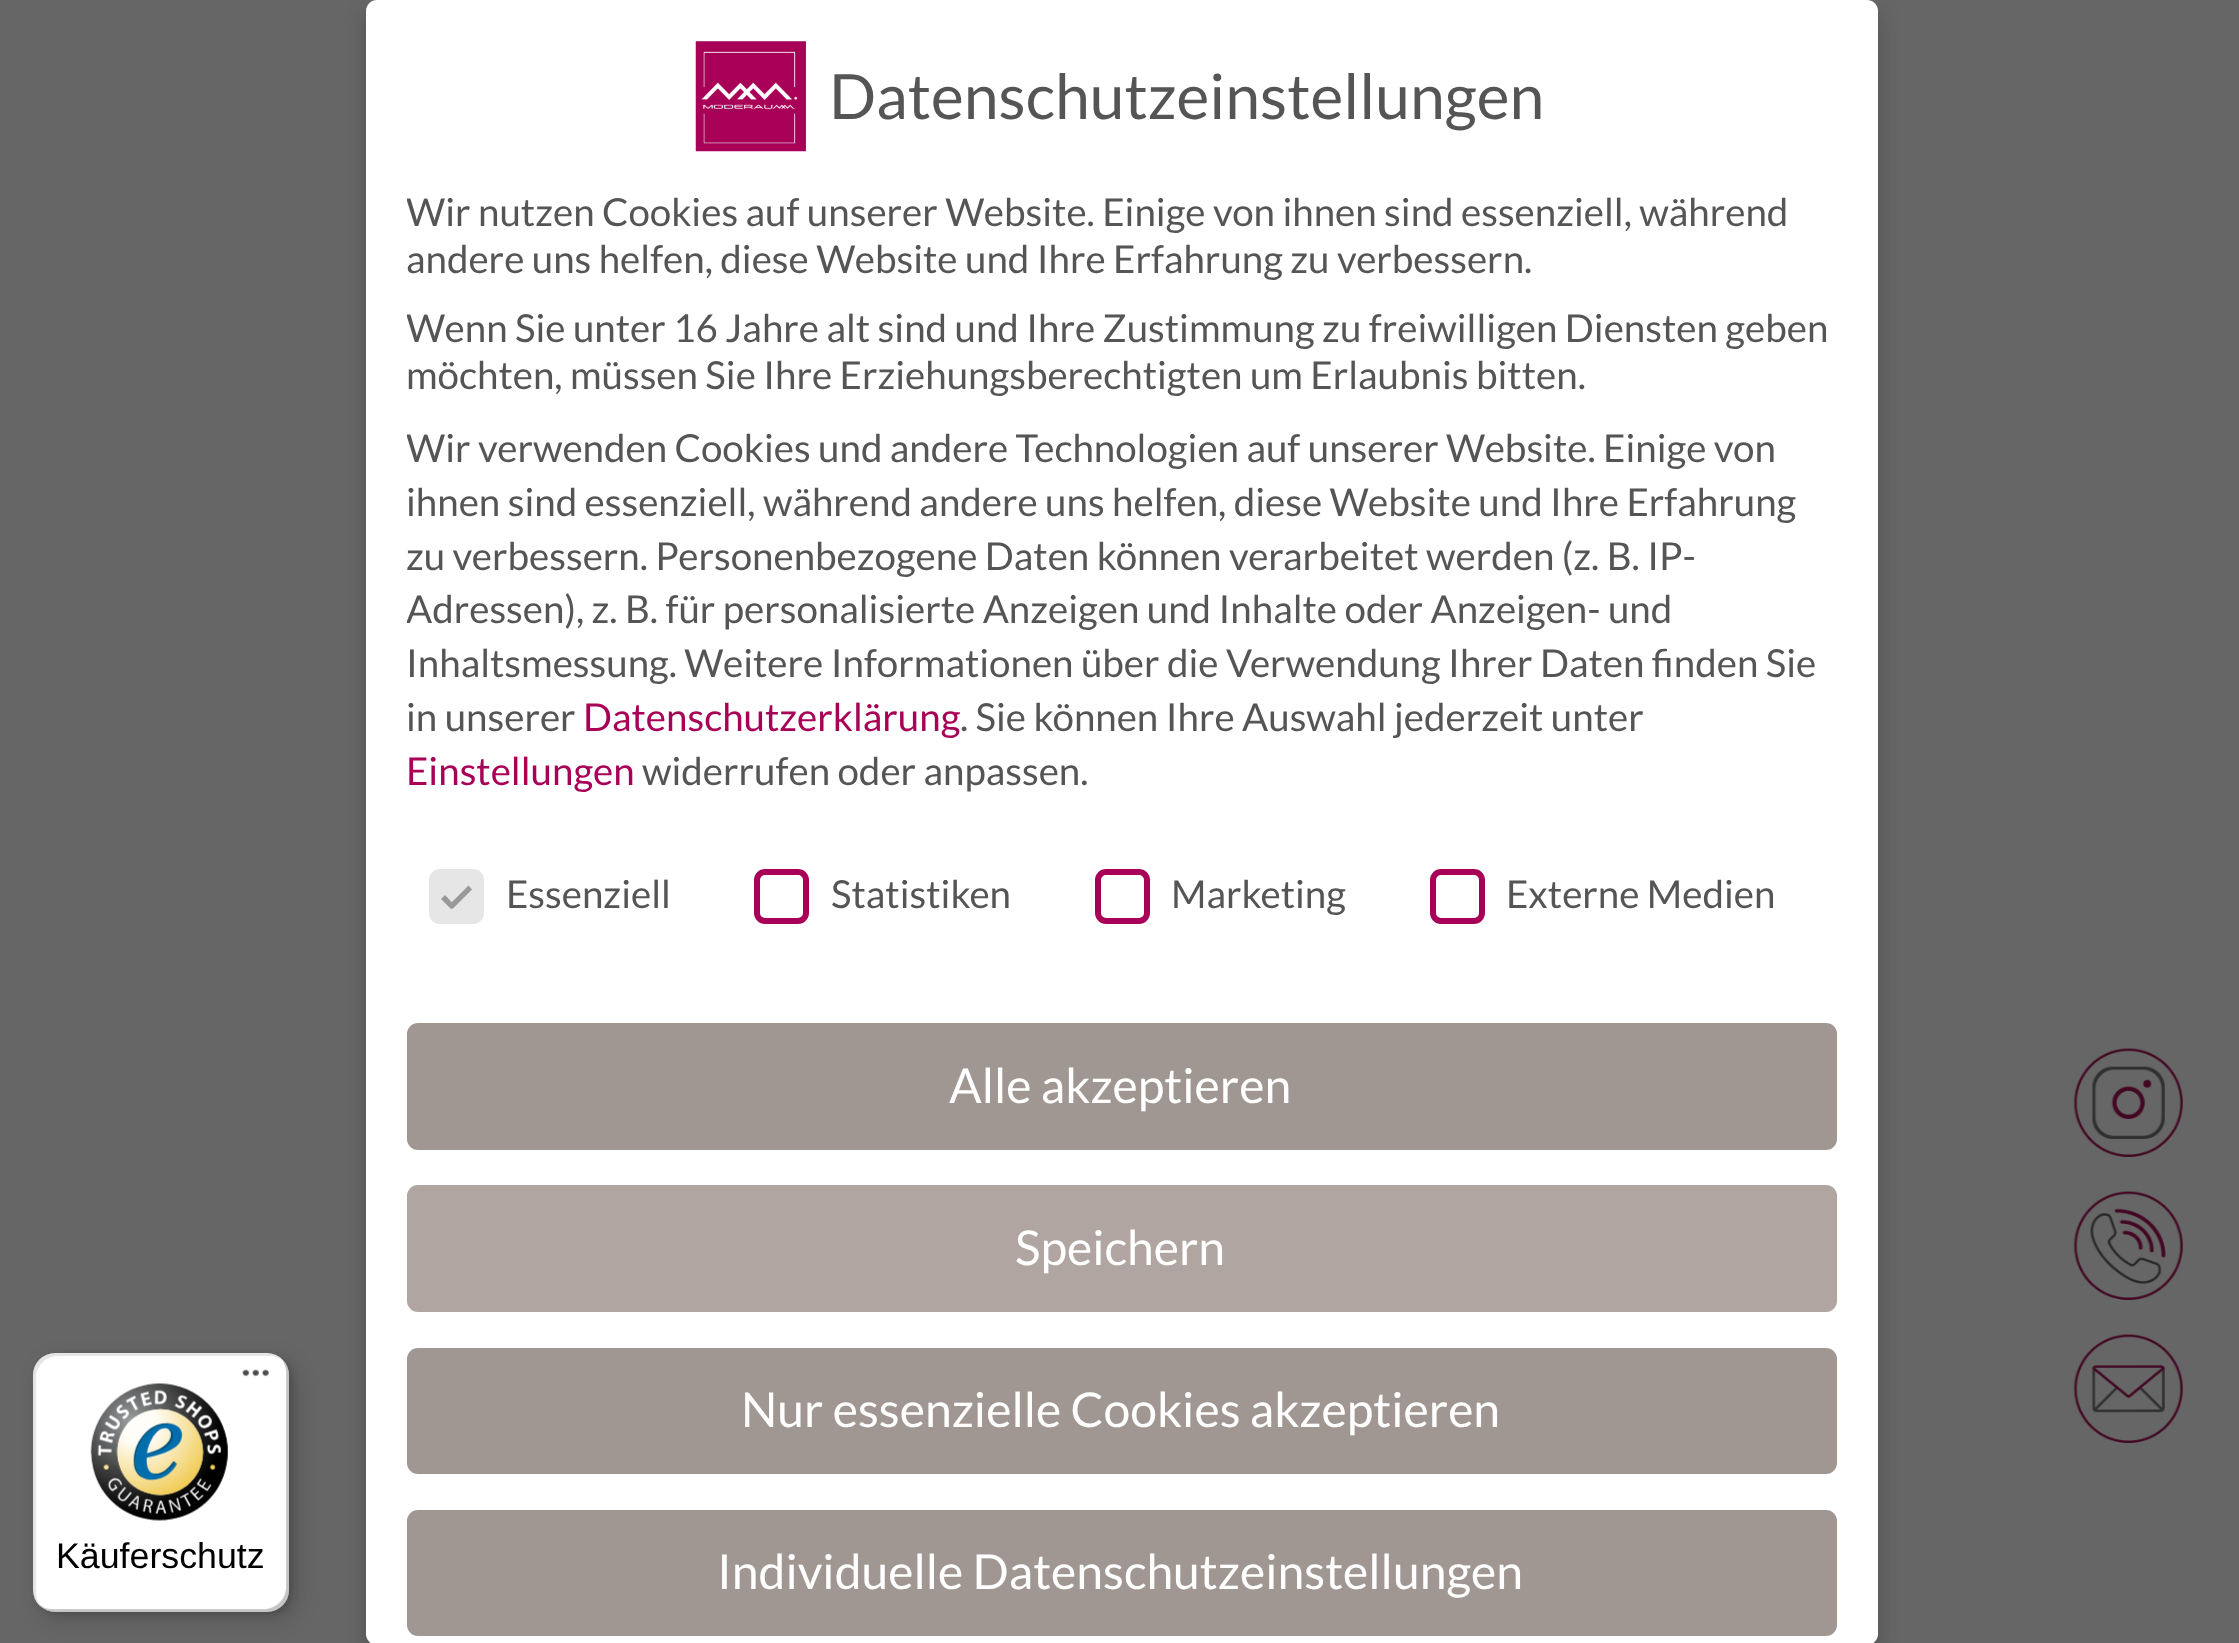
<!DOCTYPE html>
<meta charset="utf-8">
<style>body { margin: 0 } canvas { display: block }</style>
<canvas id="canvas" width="2239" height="1643"></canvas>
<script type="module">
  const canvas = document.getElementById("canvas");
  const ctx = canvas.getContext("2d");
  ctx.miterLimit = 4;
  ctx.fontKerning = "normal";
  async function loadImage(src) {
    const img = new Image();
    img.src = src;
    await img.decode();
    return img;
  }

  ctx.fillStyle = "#666666";
  ctx.fillRect(0, 0, 2239, 1643);
  ctx.fillStyle = "rgba(0, 0, 0, 0.2)";
  ctx.filter = "blur(11px)";
  ctx.beginPath();
  ctx.roundRect(366, 11, 1512, 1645, 11);
  ctx.fill();
  ctx.filter = "none";
  ctx.fillStyle = "#ffffff";
  ctx.beginPath();
  ctx.roundRect(366, 0, 1512, 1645, 11);
  ctx.fill();
  ctx.drawImage(await loadImage("img1.png"), 695, 41, 111, 111);
  ctx.font = "62.5px Lato";
  ctx.fillStyle = "#555555";
  ctx.fillText("Datenschutzeinstellungen", 829, 119);
  ctx.save();
  ctx.beginPath();
  ctx.rect(407, 187, 1430, 611);
  ctx.clip();
  ctx.font = "38.5px Lato";
  ctx.fillText("Wir nutzen Cookies auf unserer Website. Einige von ihnen sind essenziell, während", 406, 226);
  ctx.restore();
  ctx.font = "38.5px Lato";
  ctx.fillText("andere uns helfen, diese Website und Ihre Erfahrung zu verbessern.", 406, 273);
  ctx.save();
  ctx.beginPath();
  ctx.rect(407, 187, 1430, 611);
  ctx.clip();
  ctx.fillText("Wenn Sie unter 16 Jahre alt sind und Ihre Zustimmung zu freiwilligen Diensten geben", 406, 342);
  ctx.restore();
  ctx.fillText("möchten, müssen Sie Ihre Erziehungsberechtigten um Erlaubnis bitten.", 406, 389);
  ctx.save();
  ctx.beginPath();
  ctx.rect(407, 187, 1430, 611);
  ctx.clip();
  ctx.fillText("Wir verwenden Cookies und andere Technologien auf unserer Website. Einige von", 406, 462);
  ctx.restore();
  ctx.fillText("ihnen sind essenziell, während andere uns helfen, diese Website und Ihre Erfahrung", 406, 516);
  ctx.fillText("zu verbessern. Personenbezogene Daten können verarbeitet werden (z. B. IP-", 406, 570);
  ctx.save();
  ctx.beginPath();
  ctx.rect(407, 187, 1430, 611);
  ctx.clip();
  ctx.fillText("Adressen), z. B. für personalisierte Anzeigen und Inhalte oder Anzeigen- und", 406, 623);
  ctx.restore();
  ctx.fillText("Inhaltsmessung. Weitere Informationen über die Verwendung Ihrer Daten finden Sie", 406, 677);
  ctx.fillText("in unserer", 406, 731);
  ctx.fillStyle = "#a90057";
  ctx.fillText("Datenschutzerklärung", 583, 731);
  ctx.fillStyle = "#555555";
  ctx.fillText(". Sie können Ihre Auswahl jederzeit unter", 960, 731);
  ctx.fillStyle = "#a90057";
  ctx.fillText("Einstellungen", 406, 785);
  ctx.fillStyle = "#555555";
  ctx.fillText("widerrufen oder anpassen.", 642, 785);
  ctx.fillStyle = "#e6e6e6";
  ctx.beginPath();
  ctx.roundRect(432, 872, 49, 49, 8);
  ctx.fill();
  ctx.strokeStyle = "#e6e6e6";
  ctx.lineWidth = 6;
  ctx.stroke();
  ctx.fillStyle = "#999999";
  ctx.beginPath();
  ctx.moveTo(468.5, 885.5);
  ctx.lineTo(472, 889.5);
  ctx.lineTo(452.5, 909);
  ctx.lineTo(449, 905);
  ctx.closePath();
  ctx.fill();
  ctx.beginPath();
  ctx.moveTo(445, 895);
  ctx.lineTo(454.5, 905);
  ctx.lineTo(451, 909);
  ctx.lineTo(441, 899);
  ctx.closePath();
  ctx.fill();
  ctx.fillStyle = "#555555";
  ctx.fillText("Essenziell", 506, 908);
  ctx.beginPath();
  ctx.roundRect(757, 872, 49, 49, 8);
  ctx.strokeStyle = "#a90057";
  ctx.stroke();
  ctx.fillText("Statistiken", 831, 908);
  ctx.beginPath();
  ctx.roundRect(1098, 872, 49, 49, 8);
  ctx.stroke();
  ctx.fillText("Marketing", 1171, 908);
  ctx.beginPath();
  ctx.roundRect(1433, 872, 49, 49, 8);
  ctx.stroke();
  ctx.fillText("Externe Medien", 1506, 908);
  ctx.fillStyle = "#a09792";
  ctx.beginPath();
  ctx.roundRect(407, 1023, 1430, 127, 11);
  ctx.fill();
  ctx.font = "48.1px Lato";
  ctx.fillStyle = "#ffffff";
  ctx.fillText("Alle akzeptieren", 949, 1103);
  ctx.fillStyle = "#b0a5a1";
  ctx.beginPath();
  ctx.roundRect(407, 1185, 1430, 127, 11);
  ctx.fill();
  ctx.fillStyle = "#ffffff";
  ctx.fillText("Speichern", 1015, 1265);
  ctx.fillStyle = "#a09792";
  ctx.beginPath();
  ctx.roundRect(407, 1348, 1430, 126, 11);
  ctx.fill();
  ctx.fillStyle = "#ffffff";
  ctx.fillText("Nur essenzielle Cookies akzeptieren", 741, 1427);
  ctx.fillStyle = "#a09792";
  ctx.beginPath();
  ctx.roundRect(407, 1510, 1430, 126, 11);
  ctx.fill();
  ctx.fillStyle = "#ffffff";
  ctx.fillText("Individuelle Datenschutzeinstellungen", 717, 1589);
  ctx.drawImage(await loadImage("img2.png"), 2073, 1048, 110, 109);
  ctx.drawImage(await loadImage("img3.png"), 2073, 1191, 110, 109);
  ctx.drawImage(await loadImage("img4.png"), 2073, 1334, 110, 109);
  ctx.fillStyle = "rgba(0, 0, 0, 0.15)";
  ctx.filter = "blur(11px)";
  ctx.beginPath();
  ctx.roundRect(41, 1361, 256, 259, 22);
  ctx.fill();
  ctx.filter = "none";
  ctx.filter = "blur(3px)";
  ctx.beginPath();
  ctx.roundRect(36, 1356, 256, 258, 22);
  ctx.fill();
  ctx.filter = "none";
  ctx.fillStyle = "#ffffff";
  ctx.beginPath();
  ctx.roundRect(33, 1353, 256, 259, 22);
  ctx.fill();
  ctx.fillStyle = "rgba(0, 0, 0, 0.1)";
  ctx.beginPath();
  ctx.moveTo(58, 1356);
  ctx.lineTo(270, 1356);
  ctx.bezierCurveTo(275, 1356, 280, 1358, 284, 1361);
  ctx.bezierCurveTo(280, 1356, 274, 1353, 267, 1353);
  ctx.lineTo(55, 1353);
  ctx.bezierCurveTo(43, 1353, 33, 1363, 33, 1375);
  ctx.lineTo(33, 1590);
  ctx.bezierCurveTo(33, 1598, 38, 1606, 45, 1609);
  ctx.bezierCurveTo(39, 1605, 36, 1599, 36, 1592);
  ctx.lineTo(36, 1378);
  ctx.bezierCurveTo(36, 1366, 46, 1356, 58, 1356);
  ctx.closePath();
  ctx.fill();
  ctx.fillStyle = "rgba(0, 0, 0, 0.2)";
  ctx.beginPath();
  ctx.moveTo(38, 1604);
  ctx.bezierCurveTo(42, 1609, 48, 1612, 55, 1612);
  ctx.lineTo(267, 1612);
  ctx.bezierCurveTo(279, 1612, 289, 1602, 289, 1590);
  ctx.lineTo(289, 1375);
  ctx.bezierCurveTo(289, 1368, 286, 1362, 281, 1358);
  ctx.bezierCurveTo(284, 1362, 286, 1367, 286, 1372);
  ctx.lineTo(286, 1587);
  ctx.bezierCurveTo(286, 1599, 276, 1609, 264, 1609);
  ctx.lineTo(52, 1609);
  ctx.bezierCurveTo(47, 1609, 42, 1607, 38, 1604);
  ctx.closePath();
  ctx.fill();
  ctx.fillStyle = "rgba(50, 50, 50, 0.2)";
  ctx.beginPath();
  ctx.moveTo(38, 1604);
  ctx.bezierCurveTo(42, 1609, 48, 1612, 55, 1612);
  ctx.lineTo(267, 1612);
  ctx.bezierCurveTo(279, 1612, 289, 1602, 289, 1590);
  ctx.lineTo(289, 1375);
  ctx.bezierCurveTo(289, 1368, 286, 1362, 281, 1358);
  ctx.bezierCurveTo(285, 1362, 287, 1367, 287, 1373);
  ctx.lineTo(287, 1588);
  ctx.bezierCurveTo(287, 1600, 277, 1610, 265, 1610);
  ctx.lineTo(53, 1610);
  ctx.bezierCurveTo(47, 1610, 42, 1608, 38, 1604);
  ctx.closePath();
  ctx.fill();
  ctx.fillStyle = "rgba(255, 255, 255, 0.3)";
  ctx.beginPath();
  ctx.moveTo(35, 1600);
  ctx.bezierCurveTo(39, 1607, 47, 1612, 55, 1612);
  ctx.lineTo(267, 1612);
  ctx.bezierCurveTo(279, 1612, 289, 1602, 289, 1590);
  ctx.lineTo(289, 1375);
  ctx.bezierCurveTo(289, 1368, 285, 1361, 280, 1357);
  ctx.bezierCurveTo(284, 1361, 287, 1367, 287, 1374);
  ctx.lineTo(287, 1588);
  ctx.bezierCurveTo(287, 1600, 278, 1610, 265, 1610);
  ctx.lineTo(54, 1610);
  ctx.bezierCurveTo(46, 1610, 39, 1606, 35, 1600);
  ctx.closePath();
  ctx.fill();
  ctx.drawImage(await loadImage("img5.png"), 242, 1369, 27, 8);
  ctx.drawImage(await loadImage("img6.png"), 90, 1383, 139, 138);
  ctx.font = "35.75px Liberation Sans";
  ctx.fillStyle = "#000000";
  ctx.fillText("Käuferschutz", 56, 1568);
</script>
